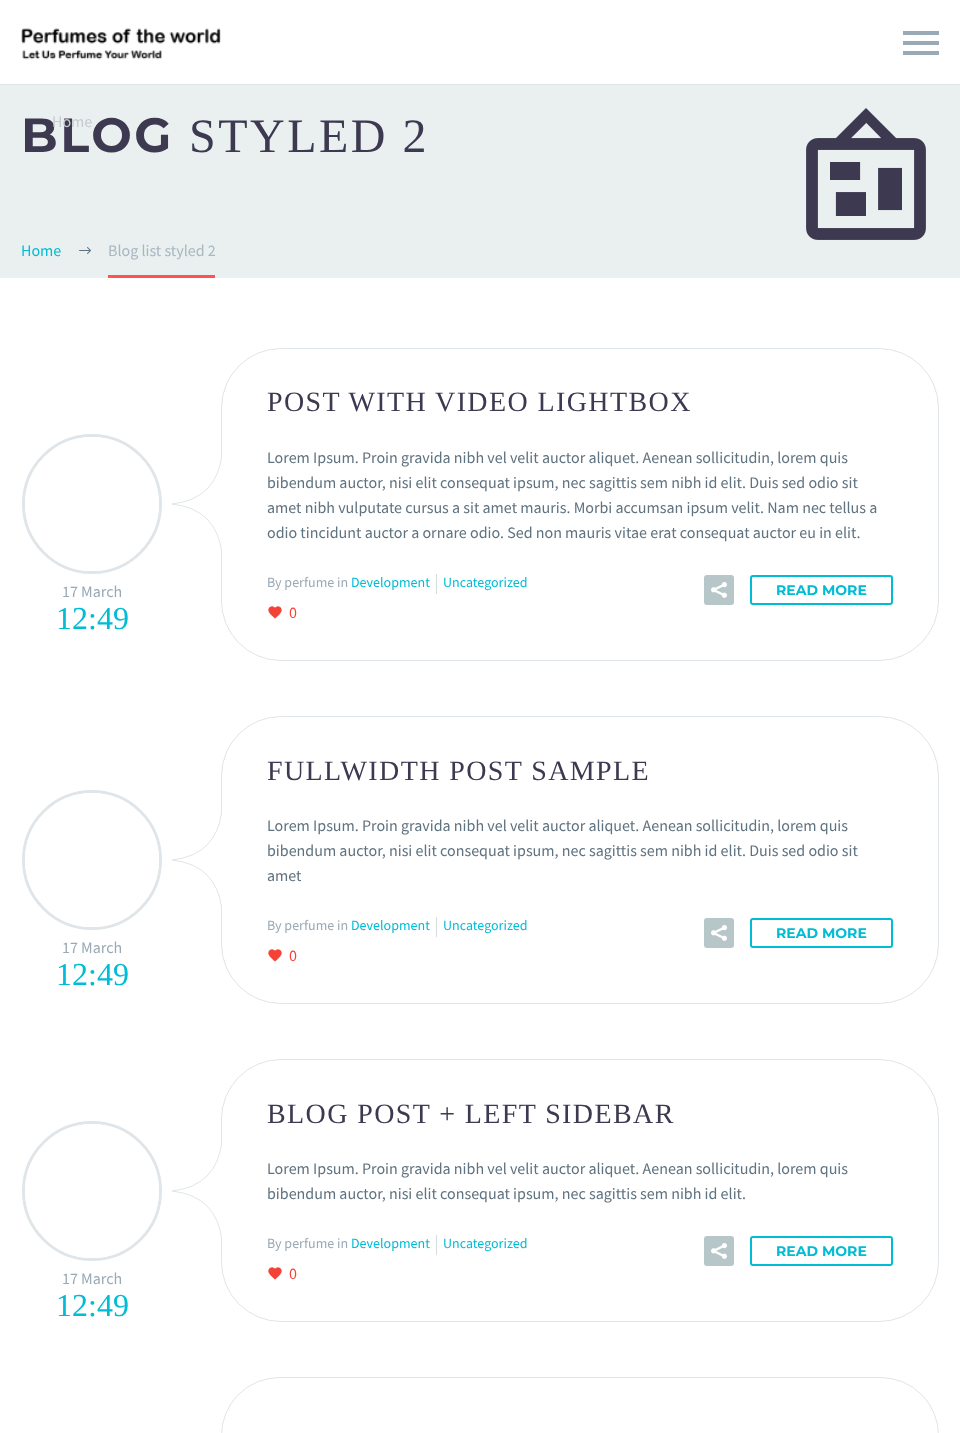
<!DOCTYPE html>
<meta charset="utf-8">
<style>body { margin: 0 } canvas { display: block }</style>
<canvas id="canvas" width="960" height="1433"></canvas>
<script type="module">
  const canvas = document.getElementById("canvas");
  const ctx = canvas.getContext("2d");
  ctx.miterLimit = 4;
  ctx.fontKerning = "normal";
  async function loadImage(src) {
    const img = new Image();
    img.src = src;
    await img.decode();
    return img;
  }

  ctx.fillStyle = "#ffffff";
  ctx.fillRect(0, 0, 960, 1433);
  ctx.fillStyle = "#e9f0ef";
  ctx.fillRect(0, 84, 960, 194);
  ctx.save();
  ctx.beginPath();
  ctx.rect(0, 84, 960, 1);
  ctx.clip();
  ctx.fillStyle = "rgba(56, 69, 84, 0.2)";
  ctx.filter = "blur(1px)";
  ctx.beginPath();
  ctx.rect(0, 0, 960, 84);
  ctx.fill();
  ctx.filter = "none";
  ctx.restore();
  ctx.drawImage(await loadImage("img1.png"), 21, 28, 200, 32);
  ctx.fillStyle = "#99a9b5";
  ctx.fillRect(903, 31, 36, 4);
  ctx.fillRect(903, 41, 36, 4);
  ctx.fillRect(903, 51, 36, 4);
  ctx.letterSpacing = "2.5px";
  ctx.font = "bold 48px Montserrat";
  ctx.fillStyle = "#3c3950";
  ctx.fillText("BLOG", 21, 152);
  ctx.letterSpacing = "0px";
  ctx.font = "16px Source Sans Pro";
  ctx.fillStyle = "#c6cbcf";
  ctx.fillText("Home", 52, 127);
  ctx.letterSpacing = "2.5px";
  ctx.font = "48px Liberation Serif";
  ctx.fillStyle = "#3c3950";
  ctx.fillText("STYLED 2", 189, 152);
  ctx.drawImage(await loadImage("img2.png"), 806, 108, 60, 132);
  ctx.drawImage(await loadImage("img3.png"), 866, 108, 60, 132);
  ctx.letterSpacing = "0px";
  ctx.font = "16px Source Sans Pro";
  ctx.fillStyle = "#00bcd4";
  ctx.fillText("Home", 21, 256);
  ctx.drawImage(await loadImage("img4.png"), 79, 247, 12, 7);
  ctx.fillStyle = "#ff5252";
  ctx.fillRect(108, 275, 107, 3);
  ctx.fillStyle = "#a9b7c1";
  ctx.fillText("Blog list styled 2", 108, 256);
  ctx.beginPath();
  ctx.roundRect(221.5, 348.5, 717, 312, 59.5);
  ctx.strokeStyle = "#dfe5e8";
  ctx.stroke();
  ctx.drawImage(await loadImage("img5.png"), 172, 458, 50, 92);
  ctx.letterSpacing = "1.4px";
  ctx.font = "28px Liberation Serif";
  ctx.fillStyle = "#3c3950";
  ctx.fillText("POST WITH VIDEO LIGHTBOX", 267, 411);
  ctx.letterSpacing = "0px";
  ctx.font = "16px Source Sans Pro";
  ctx.fillStyle = "#5f727f";
  ctx.fillText("Lorem Ipsum. Proin gravida nibh vel velit auctor aliquet. Aenean sollicitudin, lorem quis", 267, 463);
  ctx.fillText("bibendum auctor, nisi elit consequat ipsum, nec sagittis sem nibh id elit. Duis sed odio sit", 267, 488);
  ctx.fillText("amet nibh vulputate cursus a sit amet mauris. Morbi accumsan ipsum velit. Nam nec tellus a", 267, 513);
  ctx.fillText("odio tincidunt auctor a ornare odio. Sed non mauris vitae erat consequat auctor eu in elit.", 267, 538);
  ctx.font = "14px Source Sans Pro";
  ctx.fillStyle = "#99a9b5";
  ctx.fillText("By perfume in", 267, 587);
  ctx.fillStyle = "#00bcd4";
  ctx.fillText("Development", 351, 587);
  ctx.fillStyle = "#d4dee1";
  ctx.fillRect(436, 574, 1, 20);
  ctx.fillStyle = "#00bcd4";
  ctx.fillText("Uncategorized", 443, 587);
  ctx.fillStyle = "#b6c6c9";
  ctx.beginPath();
  ctx.roundRect(704, 575, 30, 30, 3);
  ctx.fill();
  ctx.drawImage(await loadImage("img6.png"), 711, 582, 16, 16);
  ctx.beginPath();
  ctx.roundRect(751, 576, 141, 28, 2);
  ctx.strokeStyle = "#00bcd4";
  ctx.lineWidth = 2;
  ctx.stroke();
  ctx.font = "bold 14px Montserrat";
  ctx.fillStyle = "#00bcd4";
  ctx.fillText("READ MORE", 776, 595);
  ctx.drawImage(await loadImage("img7.png"), 268, 606, 14, 13);
  ctx.font = "16px Source Sans Pro";
  ctx.fillStyle = "#f44336";
  ctx.fillText("0", 289, 618);
  ctx.beginPath();
  ctx.arc(92, 504, 68.5, 0, Math.PI * 2);
  ctx.strokeStyle = "#dfe5e8";
  ctx.lineWidth = 3;
  ctx.stroke();
  ctx.beginPath();
  ctx.arc(92, 504, 65.5, 0, Math.PI * 2);
  ctx.strokeStyle = "#ffffff";
  ctx.stroke();
  ctx.fillStyle = "#99a9b5";
  ctx.fillText("17 March", 62, 597);
  ctx.font = "32px Liberation Serif";
  ctx.fillStyle = "#00bcd4";
  ctx.fillText("12:49", 56, 629);
  ctx.beginPath();
  ctx.roundRect(221.5, 716.5, 717, 287, 59.5);
  ctx.strokeStyle = "#dfe5e8";
  ctx.lineWidth = 1;
  ctx.stroke();
  ctx.drawImage(await loadImage("img8.png"), 172, 814, 50, 92);
  ctx.letterSpacing = "1.4px";
  ctx.font = "28px Liberation Serif";
  ctx.fillStyle = "#3c3950";
  ctx.fillText("FULLWIDTH POST SAMPLE", 267, 780);
  ctx.letterSpacing = "0px";
  ctx.font = "16px Source Sans Pro";
  ctx.fillStyle = "#5f727f";
  ctx.fillText("Lorem Ipsum. Proin gravida nibh vel velit auctor aliquet. Aenean sollicitudin, lorem quis", 267, 831);
  ctx.fillText("bibendum auctor, nisi elit consequat ipsum, nec sagittis sem nibh id elit. Duis sed odio sit", 267, 856);
  ctx.fillText("amet", 267, 881);
  ctx.font = "14px Source Sans Pro";
  ctx.fillStyle = "#99a9b5";
  ctx.fillText("By perfume in", 267, 930);
  ctx.fillStyle = "#00bcd4";
  ctx.fillText("Development", 351, 930);
  ctx.fillStyle = "#d4dee1";
  ctx.fillRect(436, 917, 1, 20);
  ctx.fillStyle = "#00bcd4";
  ctx.fillText("Uncategorized", 443, 930);
  ctx.fillStyle = "#b6c6c9";
  ctx.beginPath();
  ctx.roundRect(704, 918, 30, 30, 3);
  ctx.fill();
  ctx.drawImage(await loadImage("img6.png"), 711, 925, 16, 16);
  ctx.beginPath();
  ctx.roundRect(751, 919, 141, 28, 2);
  ctx.strokeStyle = "#00bcd4";
  ctx.lineWidth = 2;
  ctx.stroke();
  ctx.font = "bold 14px Montserrat";
  ctx.fillStyle = "#00bcd4";
  ctx.fillText("READ MORE", 776, 938);
  ctx.drawImage(await loadImage("img7.png"), 268, 949, 14, 13);
  ctx.font = "16px Source Sans Pro";
  ctx.fillStyle = "#f44336";
  ctx.fillText("0", 289, 961);
  ctx.beginPath();
  ctx.arc(92, 860, 68.5, 0, Math.PI * 2);
  ctx.strokeStyle = "#dfe5e8";
  ctx.lineWidth = 3;
  ctx.stroke();
  ctx.beginPath();
  ctx.arc(92, 860, 65.5, 0, Math.PI * 2);
  ctx.strokeStyle = "#ffffff";
  ctx.stroke();
  ctx.fillStyle = "#99a9b5";
  ctx.fillText("17 March", 62, 953);
  ctx.font = "32px Liberation Serif";
  ctx.fillStyle = "#00bcd4";
  ctx.fillText("12:49", 56, 985);
  ctx.beginPath();
  ctx.roundRect(221.5, 1059.5, 717, 262, 59.5);
  ctx.strokeStyle = "#dfe5e8";
  ctx.lineWidth = 1;
  ctx.stroke();
  ctx.drawImage(await loadImage("img8.png"), 172, 1145, 50, 92);
  ctx.letterSpacing = "1.4px";
  ctx.font = "28px Liberation Serif";
  ctx.fillStyle = "#3c3950";
  ctx.fillText("BLOG POST + LEFT SIDEBAR", 267, 1123);
  ctx.letterSpacing = "0px";
  ctx.font = "16px Source Sans Pro";
  ctx.fillStyle = "#5f727f";
  ctx.fillText("Lorem Ipsum. Proin gravida nibh vel velit auctor aliquet. Aenean sollicitudin, lorem quis", 267, 1174);
  ctx.fillText("bibendum auctor, nisi elit consequat ipsum, nec sagittis sem nibh id elit.", 267, 1199);
  ctx.font = "14px Source Sans Pro";
  ctx.fillStyle = "#99a9b5";
  ctx.fillText("By perfume in", 267, 1248);
  ctx.fillStyle = "#00bcd4";
  ctx.fillText("Development", 351, 1248);
  ctx.fillStyle = "#d4dee1";
  ctx.fillRect(436, 1235, 1, 20);
  ctx.fillStyle = "#00bcd4";
  ctx.fillText("Uncategorized", 443, 1248);
  ctx.fillStyle = "#b6c6c9";
  ctx.beginPath();
  ctx.roundRect(704, 1236, 30, 30, 3);
  ctx.fill();
  ctx.drawImage(await loadImage("img6.png"), 711, 1243, 16, 16);
  ctx.beginPath();
  ctx.roundRect(751, 1237, 141, 28, 2);
  ctx.strokeStyle = "#00bcd4";
  ctx.lineWidth = 2;
  ctx.stroke();
  ctx.font = "bold 14px Montserrat";
  ctx.fillStyle = "#00bcd4";
  ctx.fillText("READ MORE", 776, 1256);
  ctx.drawImage(await loadImage("img7.png"), 268, 1267, 14, 13);
  ctx.font = "16px Source Sans Pro";
  ctx.fillStyle = "#f44336";
  ctx.fillText("0", 289, 1279);
  ctx.beginPath();
  ctx.arc(92, 1191, 68.5, 0, Math.PI * 2);
  ctx.strokeStyle = "#dfe5e8";
  ctx.lineWidth = 3;
  ctx.stroke();
  ctx.beginPath();
  ctx.arc(92, 1191, 65.5, 0, Math.PI * 2);
  ctx.strokeStyle = "#ffffff";
  ctx.stroke();
  ctx.fillStyle = "#99a9b5";
  ctx.fillText("17 March", 62, 1284);
  ctx.font = "32px Liberation Serif";
  ctx.fillStyle = "#00bcd4";
  ctx.fillText("12:49", 56, 1316);
  ctx.beginPath();
  ctx.roundRect(221.5, 1377.5, 717, 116, 59.5);
  ctx.strokeStyle = "#dfe5e8";
  ctx.lineWidth = 1;
  ctx.stroke();
</script>
